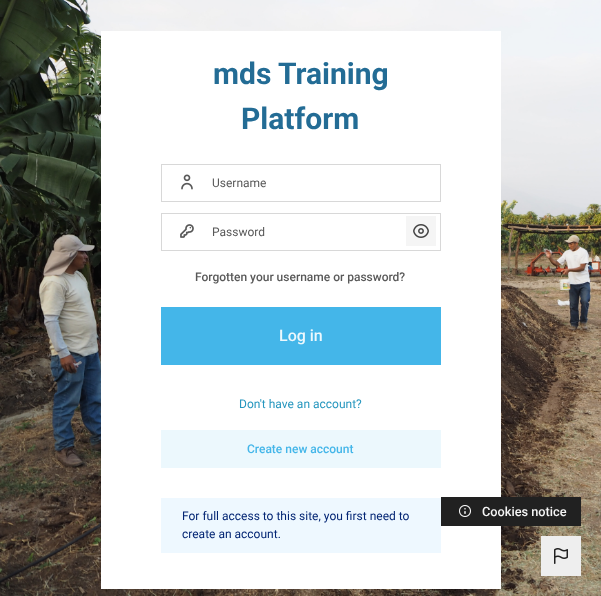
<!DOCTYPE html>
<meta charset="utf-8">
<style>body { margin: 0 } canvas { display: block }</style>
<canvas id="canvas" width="601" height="596"></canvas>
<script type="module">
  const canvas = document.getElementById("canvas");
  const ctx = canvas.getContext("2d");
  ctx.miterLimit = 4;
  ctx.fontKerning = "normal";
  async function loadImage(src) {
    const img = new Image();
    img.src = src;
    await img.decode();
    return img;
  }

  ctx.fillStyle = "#ffffff";
  ctx.fillRect(0, 0, 601, 596);
  ctx.drawImage(await loadImage("img1.png"), 0, 0, 601, 596);
  ctx.fillRect(101, 31, 400, 558);
  ctx.font = "bold 30px Roboto";
  ctx.fillStyle = "#236c95";
  ctx.fillText("mds Training", 213, 84);
  ctx.fillText("Platform", 241, 129);
  ctx.strokeStyle = "#d8d8d8";
  ctx.strokeRect(161.5, 164.5, 279, 37);
  ctx.drawImage(await loadImage("img2.png"), 181, 174, 12, 16);
  ctx.font = "12px Roboto";
  ctx.fillStyle = "#595959";
  ctx.fillText("Username", 212, 187);
  ctx.strokeRect(161.5, 213.5, 279, 37);
  ctx.drawImage(await loadImage("img3.png"), 180, 224, 14, 14);
  ctx.fillText("Password", 212, 236);
  ctx.fillStyle = "#f5f5f5";
  ctx.fillRect(406, 216, 30, 30);
  ctx.drawImage(await loadImage("img4.png"), 413, 224, 16, 14);
  ctx.font = "500 12px Roboto";
  ctx.fillStyle = "#595959";
  ctx.fillText("Forgotten your username or password?", 195, 281);
  ctx.fillStyle = "#44b6e9";
  ctx.fillRect(161, 307, 280, 58);
  ctx.font = "500 16px Roboto";
  ctx.fillStyle = "#ecf8fd";
  ctx.fillText("Log in", 279, 341);
  ctx.font = "12px Roboto";
  ctx.fillStyle = "#2596be";
  ctx.fillText("Don't have an account?", 239, 408);
  ctx.fillStyle = "#ecf8fd";
  ctx.fillRect(161, 430, 280, 38);
  ctx.font = "500 12px Roboto";
  ctx.fillStyle = "#44b6e9";
  ctx.fillText("Create new account", 247, 453);
  ctx.fillStyle = "#eef8ff";
  ctx.fillRect(161, 498, 280, 55);
  ctx.font = "12px Roboto";
  ctx.fillStyle = "#032574";
  ctx.fillText("For full access to this site, you first need to", 182, 520);
  ctx.fillText("create an account.", 182, 538);
  ctx.fillStyle = "#212121";
  ctx.fillRect(441, 497, 140, 29);
  ctx.drawImage(await loadImage("img5.png"), 459, 505, 12, 12);
  ctx.font = "500 12.75px Roboto";
  ctx.fillStyle = "#f5f5f5";
  ctx.fillText("Cookies notice", 482, 516);
  ctx.fillStyle = "#eeeeee";
  ctx.fillRect(541, 536, 40, 40);
  ctx.drawImage(await loadImage("img6.png"), 554, 548, 14, 16);
</script>
